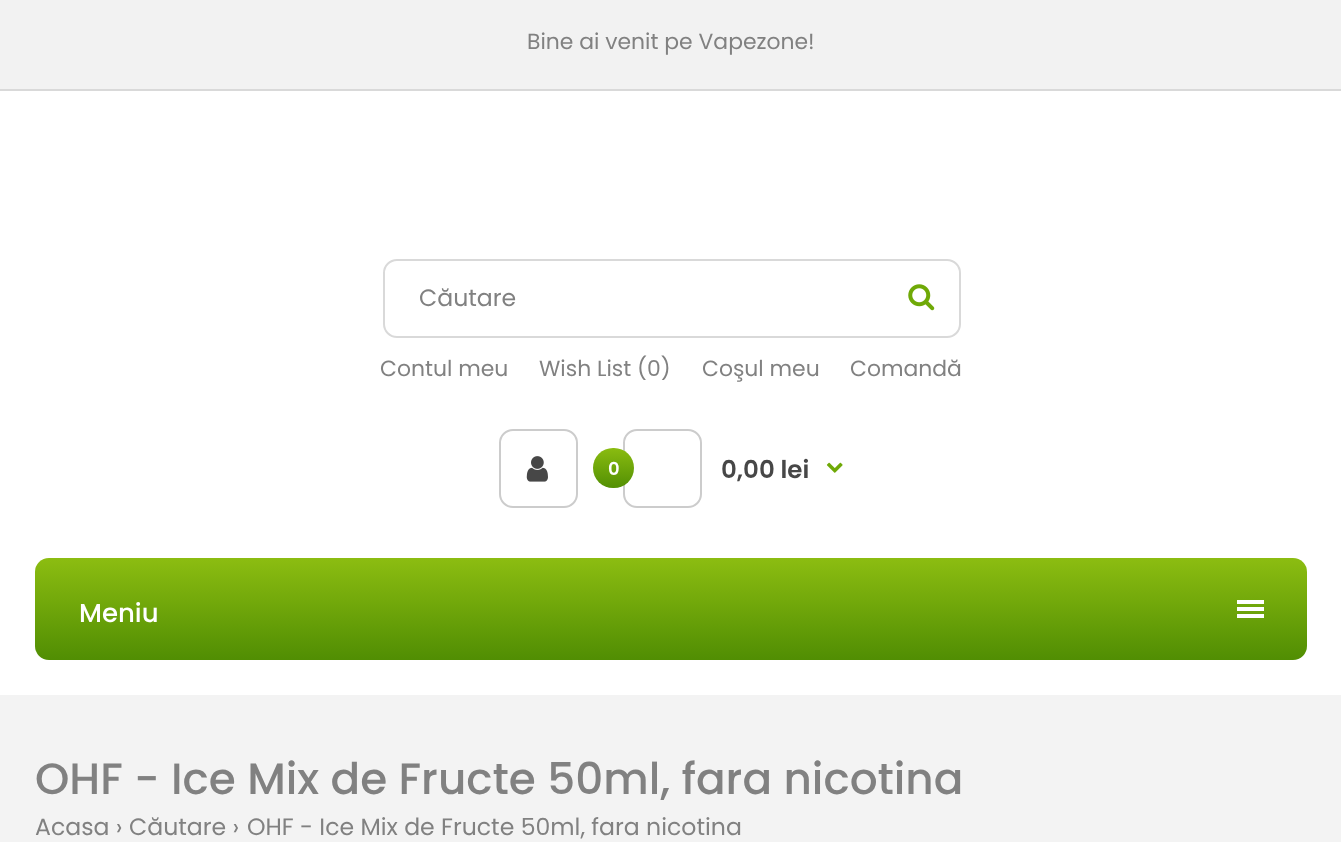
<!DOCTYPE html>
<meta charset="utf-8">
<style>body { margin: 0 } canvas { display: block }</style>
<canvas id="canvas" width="1341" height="842"></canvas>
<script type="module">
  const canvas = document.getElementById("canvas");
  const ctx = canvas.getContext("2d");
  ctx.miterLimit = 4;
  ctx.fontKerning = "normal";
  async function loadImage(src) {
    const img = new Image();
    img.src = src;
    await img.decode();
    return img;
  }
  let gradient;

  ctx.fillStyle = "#ffffff";
  ctx.fillRect(0, 0, 1341, 842);
  ctx.fillStyle = "#f2f2f2";
  ctx.fillRect(0, 0, 1341, 89);
  ctx.fillStyle = "#d9d9d9";
  ctx.fillRect(0, 89, 1341, 2);
  ctx.font = "21.9px Poppins";
  ctx.fillStyle = "#818181";
  ctx.fillText("Bine ai venit pe Vapezone!", 527, 49);
  ctx.beginPath();
  ctx.roundRect(384, 260, 576, 77, 13);
  ctx.strokeStyle = "#d9d9d9";
  ctx.lineWidth = 2;
  ctx.stroke();
  ctx.font = "23.6px Poppins";
  ctx.fillText("Căutare", 419, 306);
  ctx.drawImage(await loadImage("img1.png"), 908, 284, 27, 27);
  ctx.font = "21.9px Poppins";
  ctx.fillText("Contul meu", 380, 376);
  ctx.fillText("Wish List (0)", 539, 376);
  ctx.fillText("Coşul meu", 702, 376);
  ctx.fillText("Comandă", 850, 376);
  ctx.beginPath();
  ctx.roundRect(500, 430, 77, 77, 13);
  ctx.strokeStyle = "#cccccc";
  ctx.stroke();
  ctx.drawImage(await loadImage("img2.png"), 526, 456, 22, 26);
  ctx.beginPath();
  ctx.roundRect(624, 430, 77, 77, 13);
  ctx.stroke();
  gradient = ctx.createLinearGradient(613, 448, 613, 488);
  gradient.addColorStop(0, "#539004");
  gradient.addColorStop(0, "#8abc10");
  gradient.addColorStop(0.99, "#539004");
  ctx.fillStyle = gradient;
  ctx.beginPath();
  ctx.roundRect(593, 448, 41, 40, 20);
  ctx.fill();
  ctx.font = "600 18px Poppins";
  ctx.fillStyle = "#ffffff";
  ctx.fillText("0", 608, 475);
  ctx.font = "600 24.5px Poppins";
  ctx.fillStyle = "#474747";
  ctx.fillText("0,00 lei", 721, 478);
  ctx.drawImage(await loadImage("img3.png"), 826, 462, 17, 11);
  gradient = ctx.createLinearGradient(671, 558, 671, 660);
  gradient.addColorStop(0, "#518e03");
  gradient.addColorStop(0, "#8cbd11");
  gradient.addColorStop(0.99, "#518e03");
  ctx.fillStyle = gradient;
  ctx.beginPath();
  ctx.roundRect(35, 558, 1272, 102, 14);
  ctx.fill();
  ctx.font = "500 26px Poppins";
  ctx.fillStyle = "#ffffff";
  ctx.fillText("Meniu", 79, 622);
  ctx.fillRect(1237, 600, 27, 4);
  ctx.fillRect(1237, 607, 27, 4);
  ctx.fillRect(1237, 614, 27, 4);
  ctx.fillStyle = "#f3f3f3";
  ctx.fillRect(0, 695, 1341, 147);
  ctx.font = "500 43.75px Poppins";
  ctx.fillStyle = "#818181";
  ctx.fillText("OHF - Ice Mix de Fructe 50ml, fara nicotina", 35, 794);
  ctx.font = "23.6px Poppins";
  ctx.fillText("Acasa ›", 35, 835);
  ctx.fillText("Căutare ›", 129, 835);
  ctx.fillText("OHF - Ice Mix de Fructe 50ml, fara nicotina", 247, 835);
</script>
